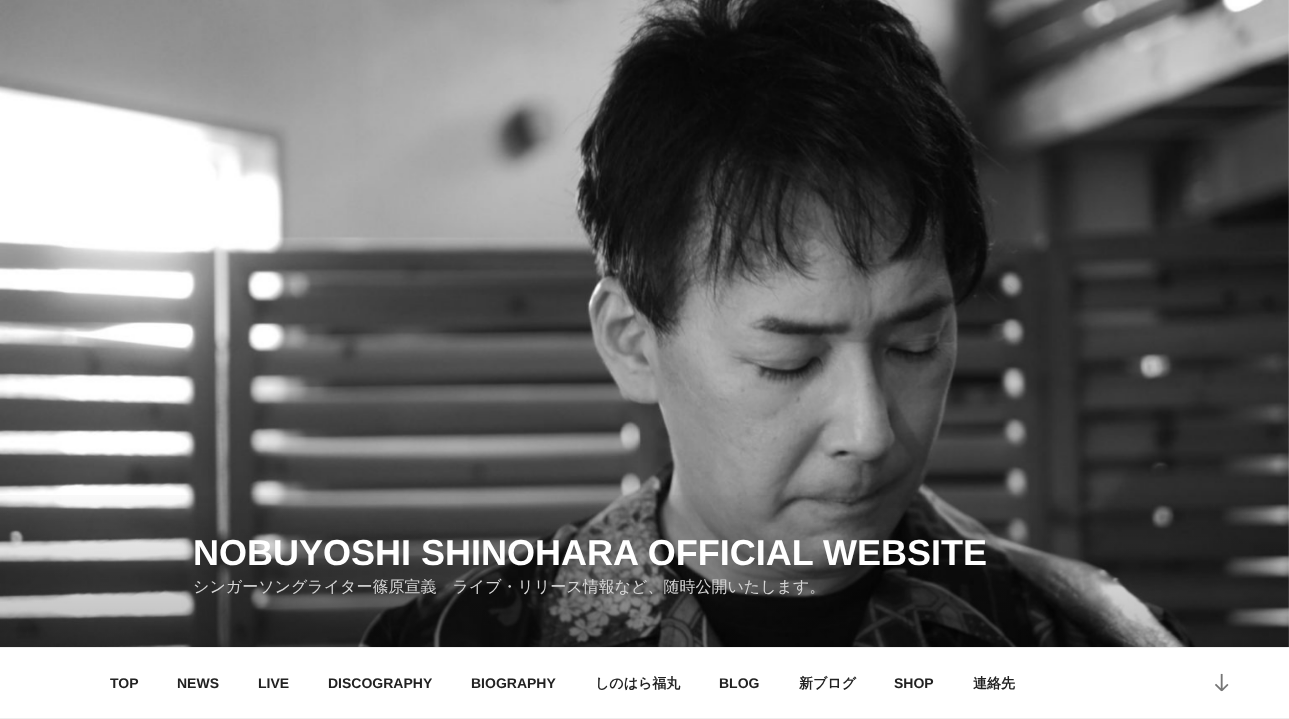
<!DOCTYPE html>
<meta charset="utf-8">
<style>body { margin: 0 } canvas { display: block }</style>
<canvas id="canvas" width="1289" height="719"></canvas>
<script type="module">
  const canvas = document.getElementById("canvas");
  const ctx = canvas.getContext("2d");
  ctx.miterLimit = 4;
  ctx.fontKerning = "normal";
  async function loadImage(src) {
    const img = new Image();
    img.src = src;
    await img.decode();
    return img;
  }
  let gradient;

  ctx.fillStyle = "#ffffff";
  ctx.fillRect(0, 0, 1289, 719);
  ctx.drawImage(await loadImage("img1.png"), 0, 0, 1289, 647);
  gradient = ctx.createLinearGradient(645, 482, 645, 719);
  gradient.addColorStop(0, "rgba(0, 0, 0, 0)");
  gradient.addColorStop(0.75, "rgba(0, 0, 0, 0.3)");
  gradient.addColorStop(1, "rgba(0, 0, 0, 0.3)");
  ctx.fillStyle = gradient;
  ctx.fillRect(0, 495, 1289, 152);
  ctx.font = "bold 36px Liberation Sans";
  ctx.fillStyle = "#ffffff";
  ctx.fillText("NOBUYOSHI SHINOHARA OFFICIAL WEBSITE", 193, 565);
  ctx.font = "500 16px WenQuanYi Zen Hei";
  ctx.fillStyle = "#d7d7d7";
  ctx.fillText("シンガーソングライター篠原宣義　ライブ・リリース情報など、随時公開いたします。", 193, 592);
  ctx.fillStyle = "#eeeeee";
  ctx.fillRect(0, 647, 1289, 1);
  ctx.fillRect(0, 718, 1289, 1);
  ctx.font = "bold 14px Liberation Sans";
  ctx.fillStyle = "#222222";
  ctx.fillText("TOP", 110, 688);
  ctx.fillText("NEWS", 177, 688);
  ctx.fillText("LIVE", 258, 688);
  ctx.fillText("DISCOGRAPHY", 328, 688);
  ctx.fillText("BIOGRAPHY", 471, 688);
  ctx.font = "bold 14px WenQuanYi Zen Hei";
  ctx.fillText("しのはら福丸", 595, 688);
  ctx.font = "bold 14px Liberation Sans";
  ctx.fillText("BLOG", 719, 688);
  ctx.font = "bold 14px WenQuanYi Zen Hei";
  ctx.fillText("新ブログ", 799, 688);
  ctx.font = "bold 14px Liberation Sans";
  ctx.fillText("SHOP", 894, 688);
  ctx.font = "bold 14px WenQuanYi Zen Hei";
  ctx.fillText("連絡先", 973, 688);
  ctx.drawImage(await loadImage("img2.png"), 1215, 673, 14, 19);
</script>
